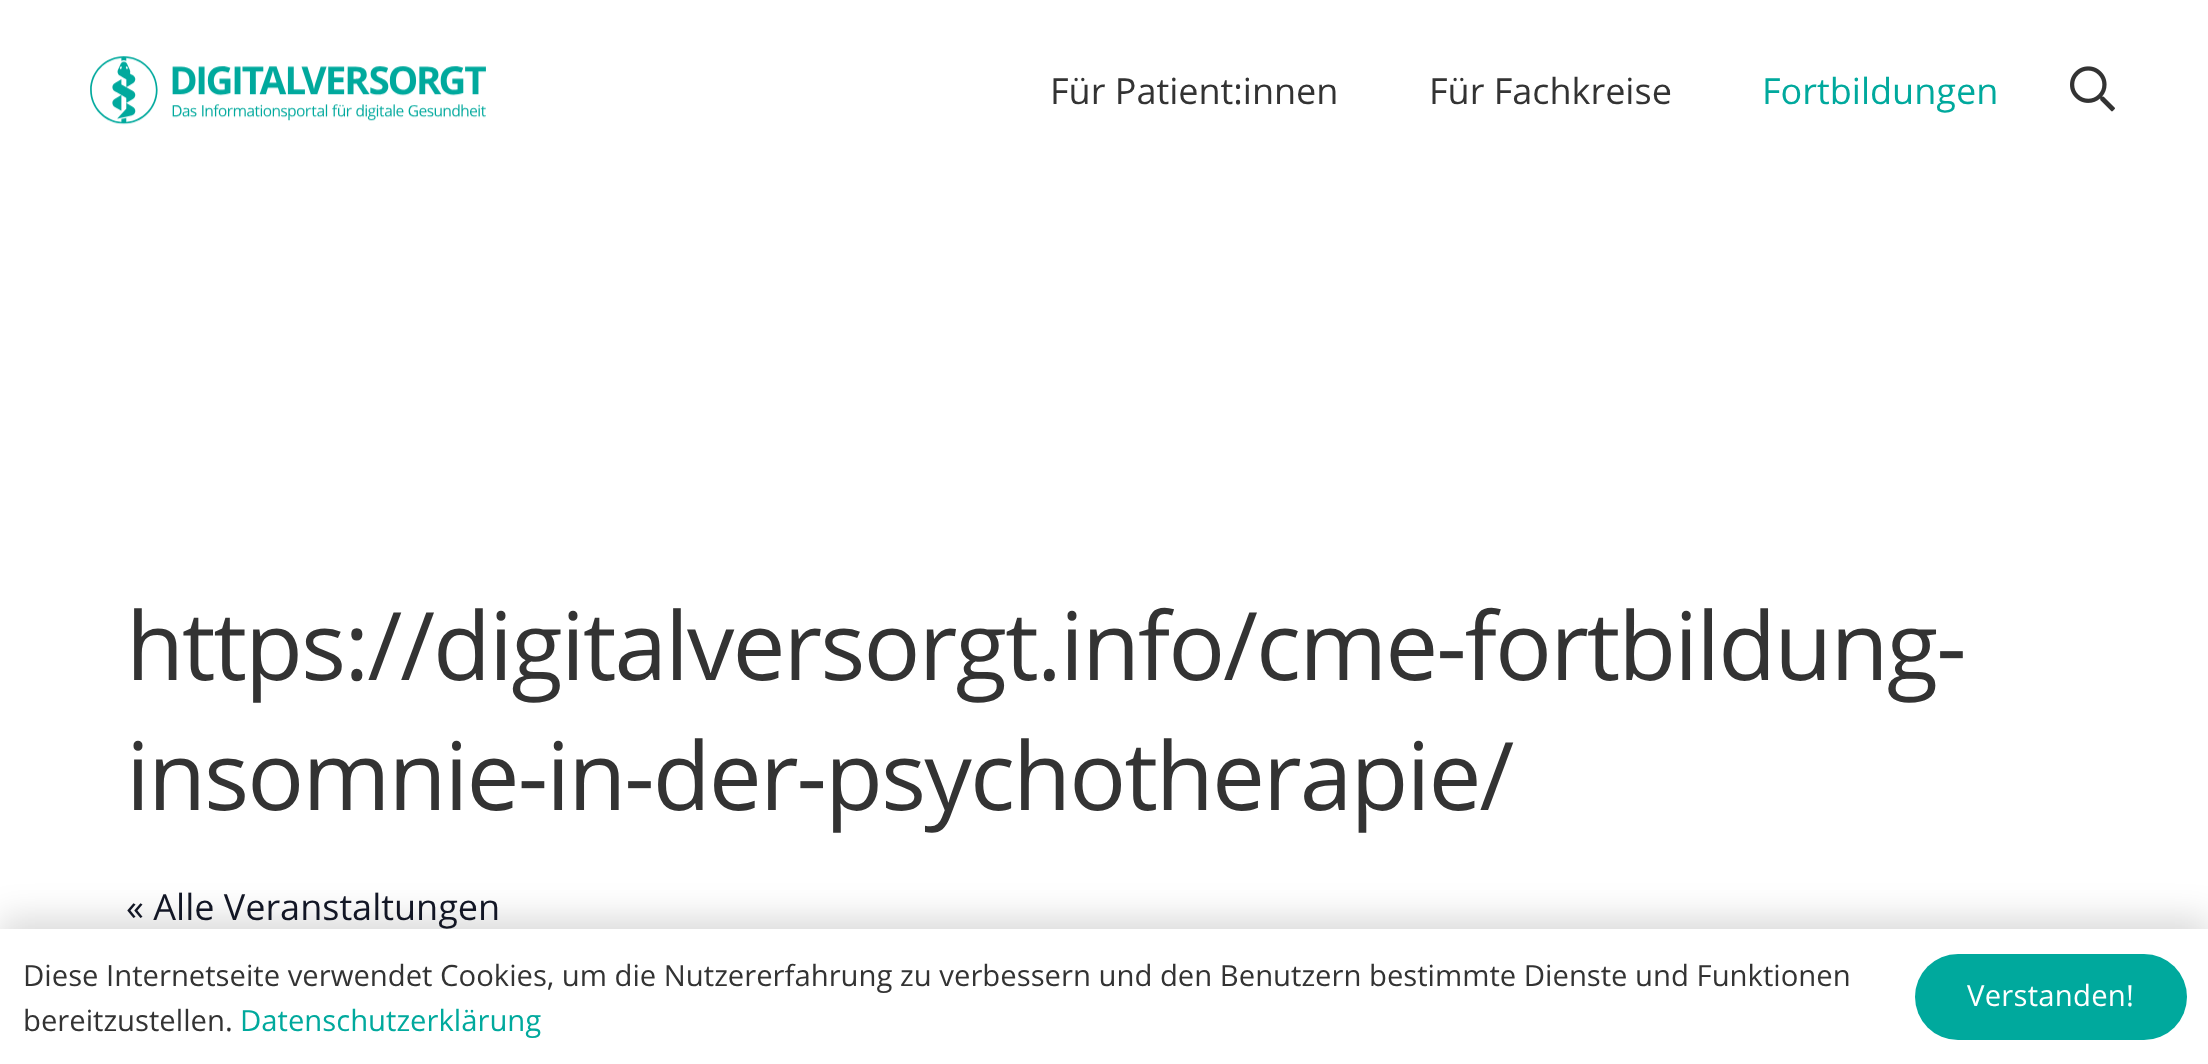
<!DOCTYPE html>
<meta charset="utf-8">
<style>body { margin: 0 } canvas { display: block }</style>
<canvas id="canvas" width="2208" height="1064"></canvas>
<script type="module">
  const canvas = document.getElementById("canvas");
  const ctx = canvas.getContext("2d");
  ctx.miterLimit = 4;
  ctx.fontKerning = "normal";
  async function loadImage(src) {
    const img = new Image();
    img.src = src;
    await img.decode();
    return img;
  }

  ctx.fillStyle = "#ffffff";
  ctx.fillRect(0, 0, 2208, 1064);
  ctx.drawImage(await loadImage("img1.png"), 90, 56, 396, 69);
  ctx.font = "36px Open Sans";
  ctx.fillStyle = "#333333";
  ctx.fillText("Für Patient:innen", 1050, 104);
  ctx.fillText("Für Fachkreise", 1429, 104);
  ctx.fillStyle = "#00a99d";
  ctx.fillText("Fortbildungen", 1762, 104);
  ctx.drawImage(await loadImage("img2.png"), 2070, 66, 45, 46);
  ctx.letterSpacing = "-1.9px";
  ctx.font = "94.5px Open Sans";
  ctx.fillStyle = "#333333";
  ctx.fillText("https://digitalversorgt.info/cme-fortbildung-", 126, 680);
  ctx.fillText("insomnie-in-der-psychotherapie/", 126, 810);
  ctx.letterSpacing = "0px";
  ctx.font = "36px Open Sans";
  ctx.fillStyle = "#141827";
  ctx.fillText("« Alle Veranstaltungen", 126, 920);
  ctx.fillStyle = "rgba(0, 0, 0, 0.15)";
  ctx.filter = "blur(17px)";
  ctx.beginPath();
  ctx.rect(0, 918, 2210, 135);
  ctx.fill();
  ctx.filter = "none";
  ctx.fillStyle = "#ffffff";
  ctx.fillRect(0, 929, 2208, 135);
  ctx.font = "29.25px Open Sans";
  ctx.fillStyle = "#333333";
  ctx.fillText("Diese Internetseite verwendet Cookies, um die Nutzererfahrung zu verbessern und den Benutzern bestimmte Dienste und Funktionen", 23, 986);
  ctx.fillText("bereitzustellen.", 23, 1031);
  ctx.fillStyle = "#00a99d";
  ctx.fillText("Datenschutzerklärung", 240, 1031);
  ctx.beginPath();
  ctx.roundRect(1915, 954, 272, 86, 43);
  ctx.fill();
  ctx.letterSpacing = "0.25px";
  ctx.fillStyle = "#ffffff";
  ctx.fillText("Verstanden!", 1967, 1006);
</script>
